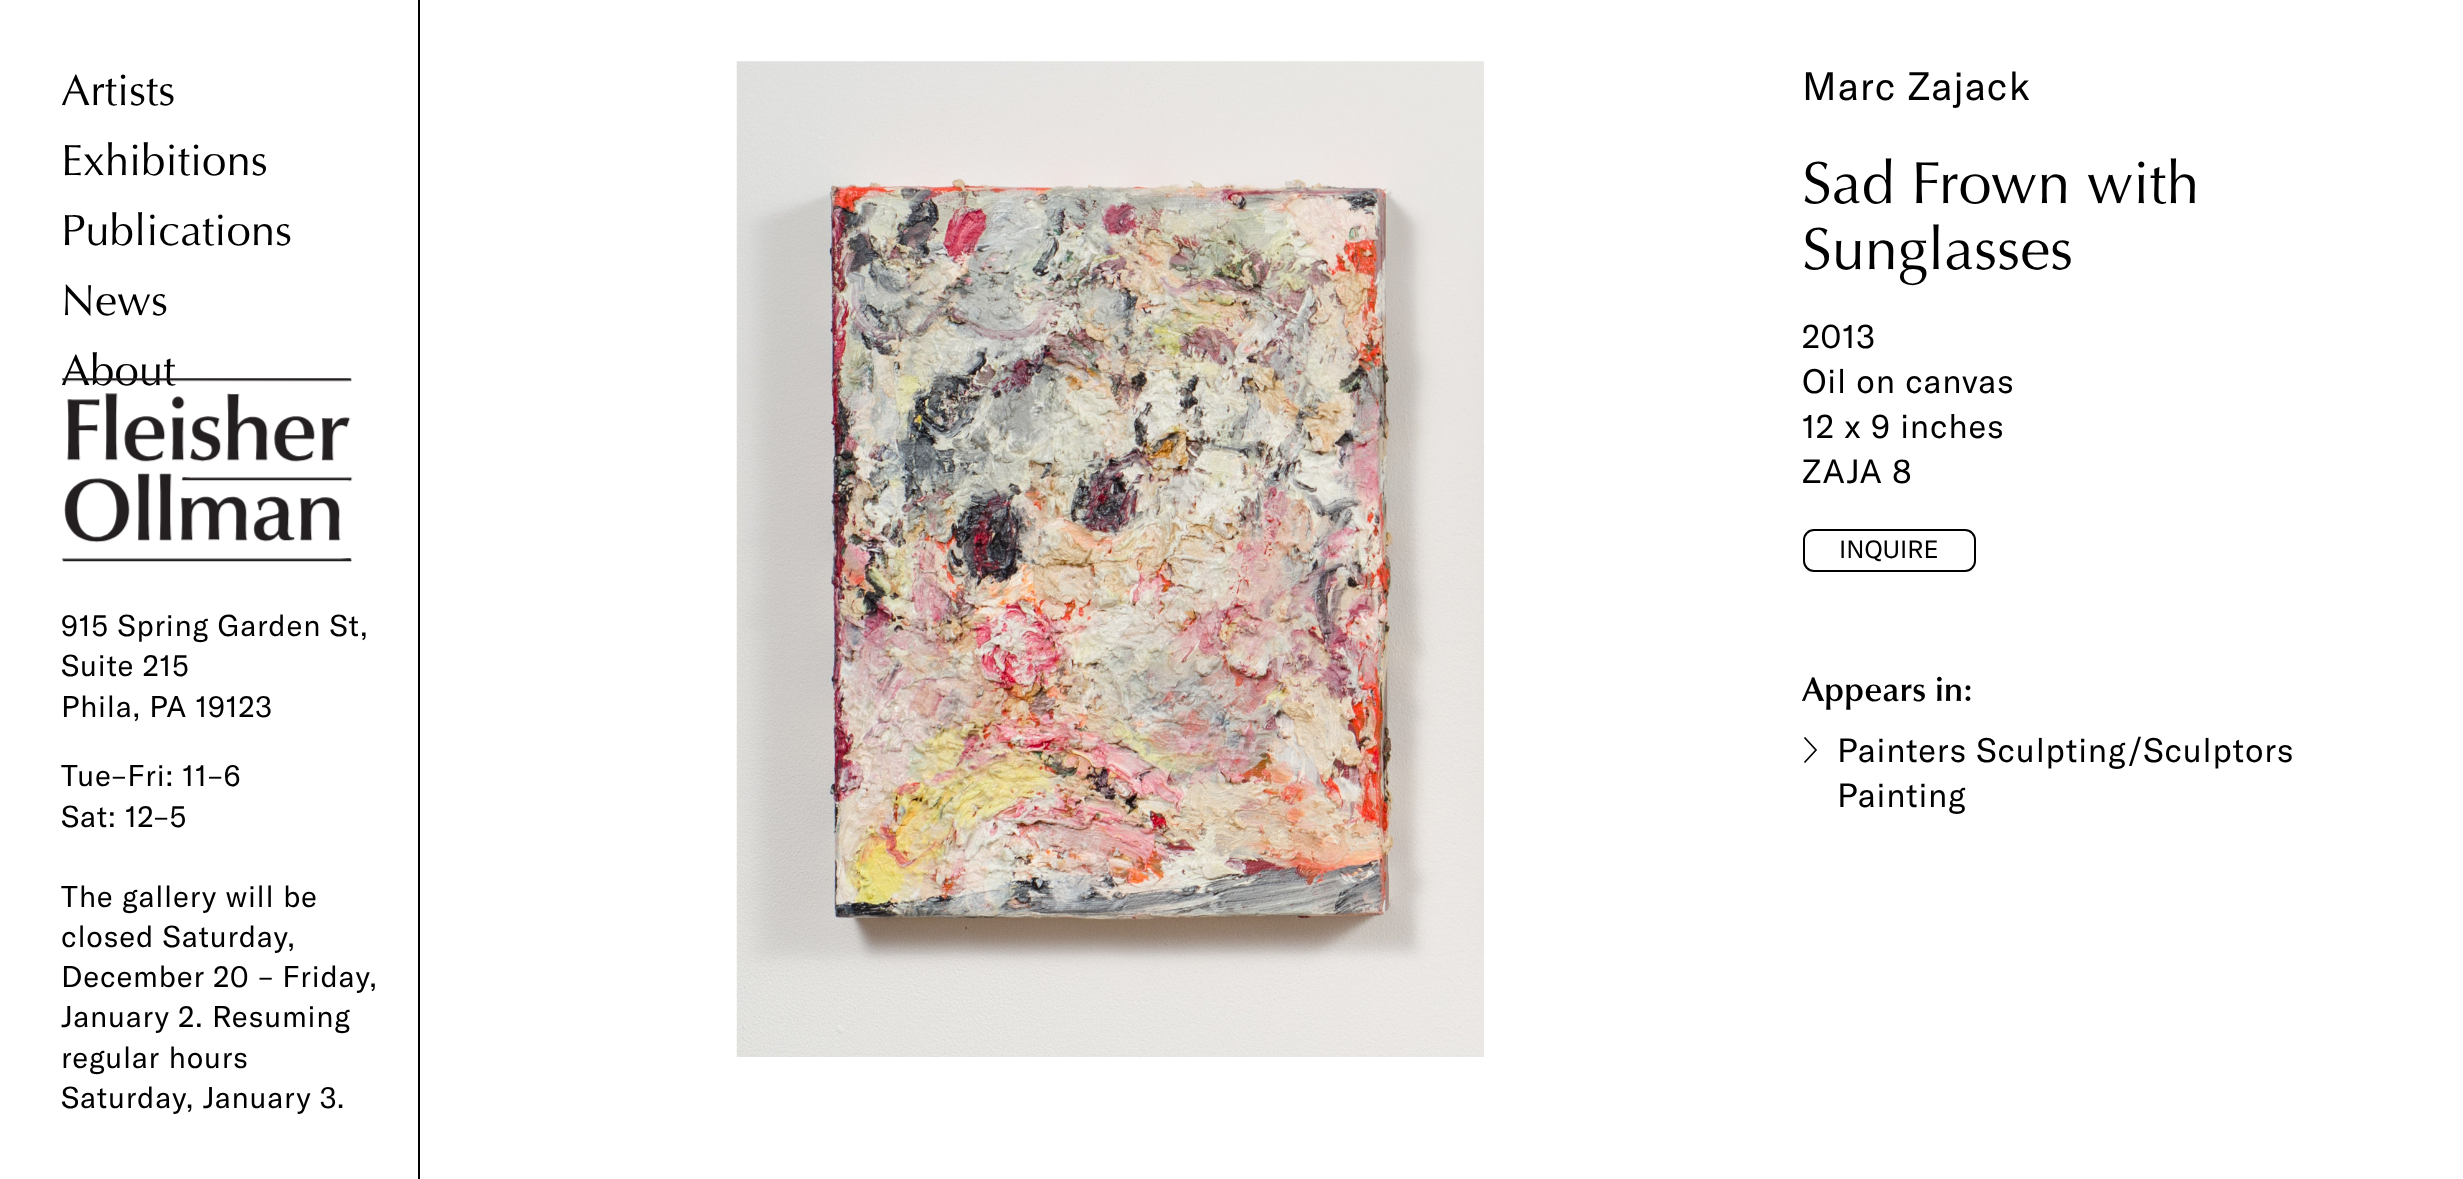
<!DOCTYPE html>
<meta charset="utf-8">
<style>body { margin: 0 } canvas { display: block }</style>
<canvas id="canvas" width="2463" height="1179"></canvas>
<script type="module">
  const canvas = document.getElementById("canvas");
  const ctx = canvas.getContext("2d");
  ctx.miterLimit = 4;
  ctx.fontKerning = "normal";
  async function loadImage(src) {
    const img = new Image();
    img.src = src;
    await img.decode();
    return img;
  }

  ctx.fillStyle = "#ffffff";
  ctx.fillRect(0, 0, 2463, 1179);
  ctx.fillStyle = "#000000";
  ctx.fillRect(418, 0, 2, 1179);
  ctx.font = "43.75px Optima";
  ctx.fillText("Artists", 61, 105);
  ctx.fillText("Exhibitions", 61, 175);
  ctx.fillText("Publications", 61, 245);
  ctx.fillText("News", 61, 315);
  ctx.fillText("About", 61, 385);
  ctx.drawImage(await loadImage("img1.png"), 61, 378, 292, 184);
  ctx.letterSpacing = "0.75px";
  ctx.font = "29.75px GT America";
  ctx.fillText("915 Spring Garden St,", 61, 636);
  ctx.fillText("Suite 215", 61, 676);
  ctx.fillText("Phila, PA 19123", 61, 717);
  ctx.fillText("Tue–Fri: 11–6", 61, 786);
  ctx.fillText("Sat: 12–5", 61, 827);
  ctx.fillText("The gallery will be", 61, 907);
  ctx.fillText("closed Saturday,", 61, 947);
  ctx.fillText("December 20 – Friday,", 61, 987);
  ctx.fillText("January 2. Resuming", 61, 1027);
  ctx.fillText("regular hours", 61, 1068);
  ctx.fillText("Saturday, January 3.", 61, 1108);
  ctx.drawImage(await loadImage("img2.png"), 736, 61, 748, 996);
  ctx.letterSpacing = "1px";
  ctx.font = "39.25px GT America";
  ctx.fillText("Marc Zajack", 1802, 100);
  ctx.letterSpacing = "0px";
  ctx.font = "59.5px Optima";
  ctx.fillText("Sad Frown with", 1802, 203);
  ctx.fillText("Sunglasses", 1802, 269);
  ctx.letterSpacing = "0.8px";
  ctx.font = "33.25px GT America";
  ctx.fillText("2013", 1802, 348);
  ctx.fillText("Oil on canvas", 1802, 393);
  ctx.fillText("12 x 9 inches", 1802, 438);
  ctx.fillText("ZAJA 8", 1802, 483);
  ctx.beginPath();
  ctx.roundRect(1804, 530, 171, 41, 10);
  ctx.strokeStyle = "#000000";
  ctx.lineWidth = 2;
  ctx.stroke();
  ctx.letterSpacing = "0px";
  ctx.font = "24.5px GT America";
  ctx.fillText("INQUIRE", 1839, 558);
  ctx.font = "600 34px Optima";
  ctx.fillText("Appears in:", 1802, 701);
  ctx.beginPath();
  ctx.moveTo(1804.5, 737.5);
  ctx.lineTo(1816, 750);
  ctx.lineTo(1804.5, 762.5);
  ctx.lineWidth = 1.7;
  ctx.stroke();
  ctx.letterSpacing = "0.8px";
  ctx.font = "33.25px GT America";
  ctx.fillText("Painters Sculpting/Sculptors", 1837, 762);
  ctx.fillText("Painting", 1837, 807);
</script>
